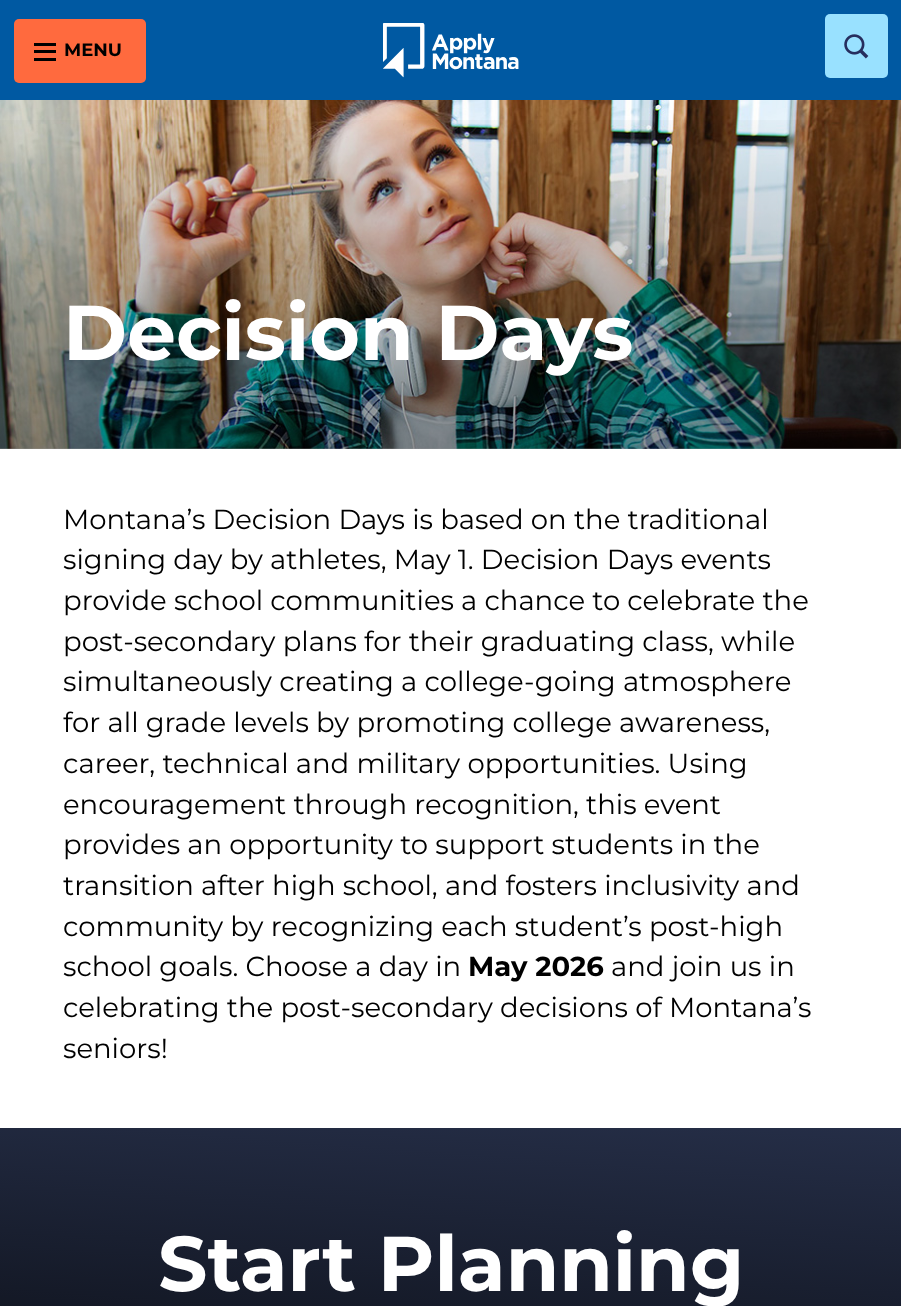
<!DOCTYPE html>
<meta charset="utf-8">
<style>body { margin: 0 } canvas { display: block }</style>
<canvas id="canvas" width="901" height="1306"></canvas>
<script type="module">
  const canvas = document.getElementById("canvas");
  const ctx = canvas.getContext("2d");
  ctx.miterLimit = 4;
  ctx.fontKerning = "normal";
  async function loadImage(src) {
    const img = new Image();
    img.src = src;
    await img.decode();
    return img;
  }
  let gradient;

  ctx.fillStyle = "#ffffff";
  ctx.fillRect(0, 0, 901, 1306);
  ctx.fillStyle = "#0059a2";
  ctx.fillRect(0, 0, 901, 100);
  ctx.fillStyle = "#ff6a3e";
  ctx.beginPath();
  ctx.roundRect(14, 19, 132, 64, 5);
  ctx.fill();
  ctx.fillStyle = "#000000";
  ctx.fillRect(34, 50, 22, 3);
  ctx.fillRect(34, 43, 22, 3);
  ctx.fillRect(34, 58, 22, 3);
  ctx.font = "bold 18px Montserrat";
  ctx.fillText("MENU", 64, 56);
  ctx.drawImage(await loadImage("img1.png"), 383, 23, 136, 55);
  ctx.fillStyle = "#99e1ff";
  ctx.beginPath();
  ctx.roundRect(825, 14, 63, 64, 5);
  ctx.fill();
  ctx.drawImage(await loadImage("img2.png"), 844, 34, 25, 25);
  ctx.drawImage(await loadImage("img3.png"), 0, 100, 901, 349);
  gradient = ctx.createLinearGradient(451, 100, 451, 449);
  gradient.addColorStop(0, "rgba(0, 0, 0, 0)");
  gradient.addColorStop(1, "rgba(0, 0, 0, 0.38)");
  ctx.fillStyle = gradient;
  ctx.fillRect(0, 120, 901, 329);
  ctx.font = "bold 77.5px Montserrat";
  ctx.fillStyle = "#ffffff";
  ctx.fillText("Decision Days", 63, 360);
  ctx.font = "27.5px Montserrat";
  ctx.fillStyle = "#000000";
  ctx.fillText("Montana’s Decision Days is based on the traditional", 63, 529);
  ctx.fillText("signing day by athletes, May 1. Decision Days events", 63, 569);
  ctx.fillText("provide school communities a chance to celebrate the", 63, 610);
  ctx.fillText("post-secondary plans for their graduating class, while", 63, 651);
  ctx.fillText("simultaneously creating a college-going atmosphere", 63, 691);
  ctx.fillText("for all grade levels by promoting college awareness,", 63, 732);
  ctx.fillText("career, technical and military opportunities. Using", 63, 773);
  ctx.fillText("encouragement through recognition, this event", 63, 814);
  ctx.fillText("provides an opportunity to support students in the", 63, 854);
  ctx.fillText("transition after high school, and fosters inclusivity and", 63, 895);
  ctx.fillText("community by recognizing each student’s post-high", 63, 936);
  ctx.fillText("school goals. Choose a day in", 63, 976);
  ctx.font = "bold 27.5px Montserrat";
  ctx.fillText("May 2026", 468, 976);
  ctx.font = "27.5px Montserrat";
  ctx.fillText("and join us in", 611, 976);
  ctx.fillText("celebrating the post-secondary decisions of Montana’s", 63, 1017);
  ctx.fillText("seniors!", 63, 1058);
  gradient = ctx.createLinearGradient(469, 1096, 432, 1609);
  gradient.addColorStop(0, "#252e47");
  gradient.addColorStop(1, "#000000");
  ctx.fillStyle = gradient;
  ctx.fillRect(0, 1128, 901, 178);
  ctx.font = "bold 77.5px Montserrat";
  ctx.fillStyle = "#ffffff";
  ctx.fillText("Start Planning", 158, 1291);
</script>
